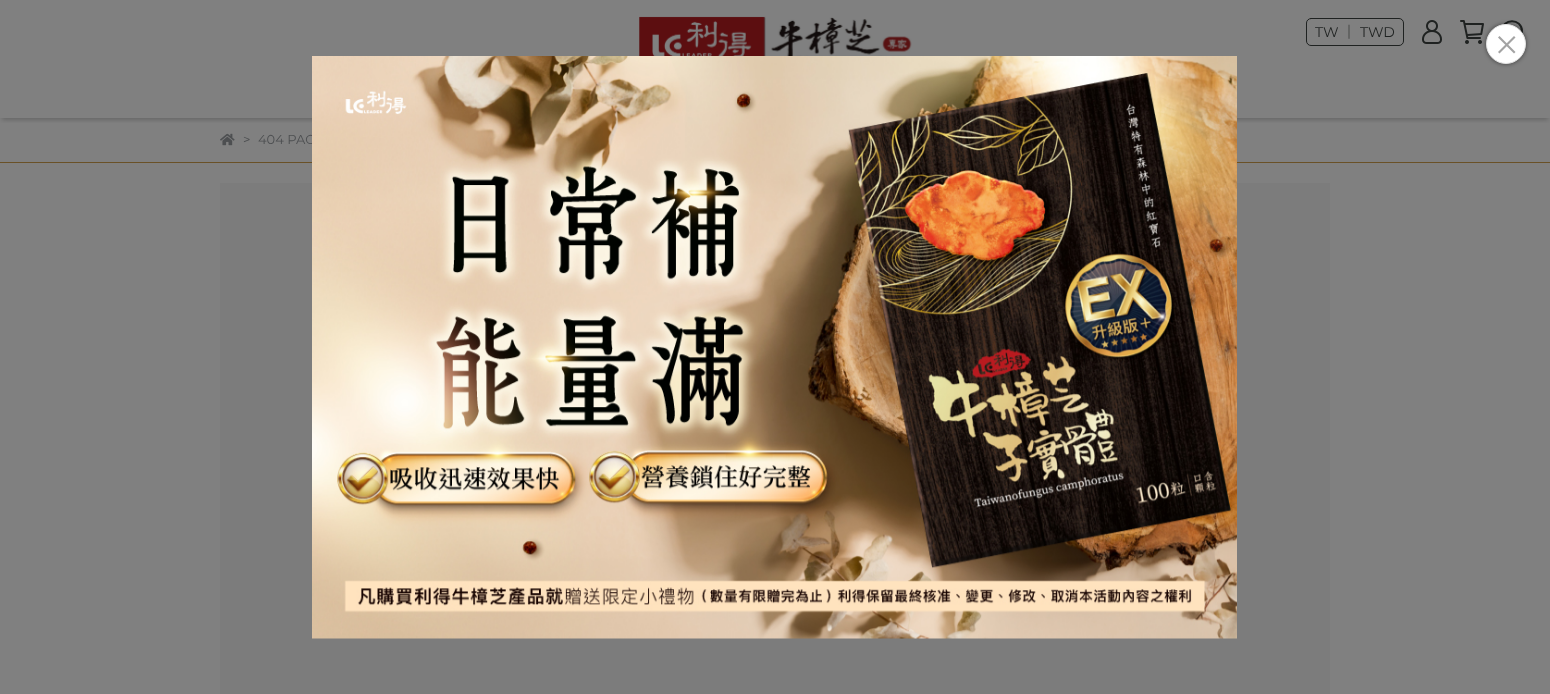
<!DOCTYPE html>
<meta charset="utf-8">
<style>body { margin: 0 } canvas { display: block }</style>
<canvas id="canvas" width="1550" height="694"></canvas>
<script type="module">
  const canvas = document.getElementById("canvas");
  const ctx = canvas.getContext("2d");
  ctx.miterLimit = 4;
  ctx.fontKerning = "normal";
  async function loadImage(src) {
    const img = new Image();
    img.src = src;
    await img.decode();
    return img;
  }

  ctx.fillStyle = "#808080";
  ctx.fillRect(0, 0, 1550, 694);
  ctx.drawImage(await loadImage("img4.png"), 1460, 20, 24, 24);
  ctx.beginPath();
  ctx.moveTo(1522, 31);
  ctx.bezierCurveTo(1522, 44, 1502, 44, 1502, 31);
  ctx.bezierCurveTo(1502, 18, 1522, 18, 1522, 31);
  ctx.closePath();
  ctx.strokeStyle = "#1f2221";
  ctx.lineWidth = 2;
  ctx.lineCap = "round";
  ctx.lineJoin = "round";
  ctx.stroke();
  ctx.fillStyle = "rgba(0, 0, 0, 0.5)";
  ctx.filter = "blur(2px)";
  ctx.beginPath();
  ctx.roundRect(1486, 24, 40, 40, 20);
  ctx.fill();
  ctx.filter = "none";
  ctx.fillStyle = "#ffffff";
  ctx.beginPath();
  ctx.arc(1506, 44, 19.5, 0, Math.PI * 2);
  ctx.fill();
  ctx.strokeStyle = "#e2e2e2";
  ctx.lineWidth = 1;
  ctx.stroke();
  ctx.fillStyle = "#a3a3a3";
  ctx.beginPath();
  ctx.moveTo(1499.5, 36);
  ctx.lineTo(1515.5, 52);
  ctx.lineTo(1514, 53.5);
  ctx.lineTo(1498, 37.5);
  ctx.closePath();
  ctx.fill();
  ctx.beginPath();
  ctx.moveTo(1498, 52);
  ctx.lineTo(1514, 36);
  ctx.lineTo(1515.5, 37.5);
  ctx.lineTo(1499.5, 53.5);
  ctx.closePath();
  ctx.fill();
  ctx.save();
  ctx.beginPath();
  ctx.rect(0, 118, 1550, 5);
  ctx.clip();
  ctx.fillStyle = "rgba(0, 0, 0, 0.2)";
  ctx.filter = "blur(2px)";
  ctx.beginPath();
  ctx.rect(2, 87, 1546, 33);
  ctx.fill();
  ctx.filter = "none";
  ctx.restore();
  ctx.fillStyle = "#6a5127";
  ctx.fillRect(0, 162, 1550, 1);
  ctx.font = "100 13px Montserrat";
  ctx.fillStyle = "#4d4f51";
  ctx.fillText("404 PAG", 258, 144);
  ctx.drawImage(await loadImage("img6.png"), 220, 183, 1110, 511);
  ctx.drawImage(await loadImage("img1.png"), 312, 56, 925, 583);
  ctx.drawImage(await loadImage("img2.png"), 639, 16, 273, 40);
  ctx.beginPath();
  ctx.roundRect(1306.5, 18.5, 97, 27, 4.5);
  ctx.strokeStyle = "#1f2221";
  ctx.lineJoin = "miter";
  ctx.stroke();
  ctx.font = "100 14px Montserrat";
  ctx.fillStyle = "#1f2221";
  ctx.fillText("TW", 1315, 37);
  ctx.font = "14px Noto Sans CJK TC";
  ctx.fillText("｜", 1342, 37);
  ctx.font = "100 14px Montserrat";
  ctx.fillText("TWD", 1360, 37);
  ctx.drawImage(await loadImage("img3.png"), 1422, 20, 20, 24);
  ctx.drawImage(await loadImage("img5.png"), 220, 133, 15, 13);
  ctx.font = "100 13px Montserrat";
  ctx.fillStyle = "#4d4f51";
  ctx.fillText(">", 243, 144);
</script>
